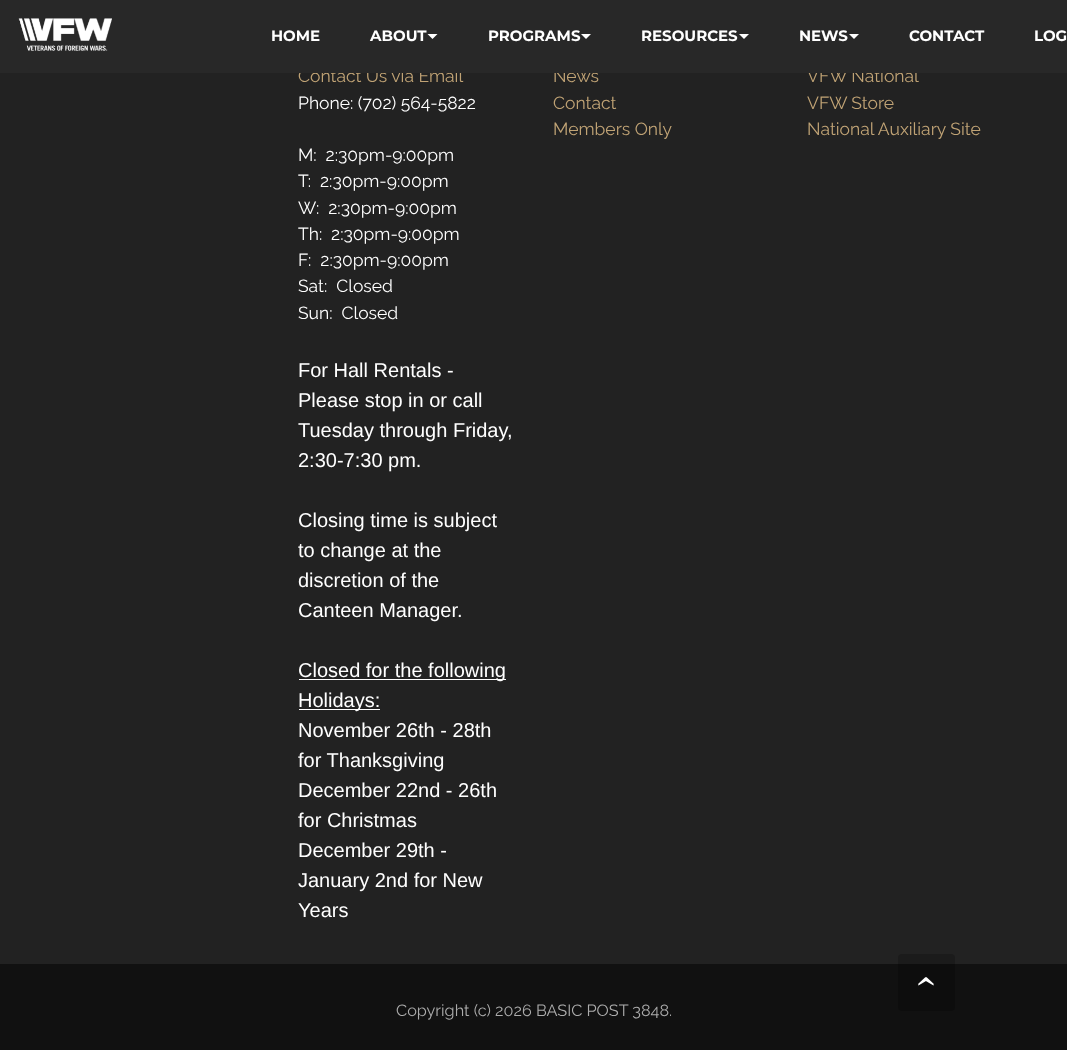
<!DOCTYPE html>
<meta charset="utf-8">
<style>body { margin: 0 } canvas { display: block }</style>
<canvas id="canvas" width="1067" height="1050"></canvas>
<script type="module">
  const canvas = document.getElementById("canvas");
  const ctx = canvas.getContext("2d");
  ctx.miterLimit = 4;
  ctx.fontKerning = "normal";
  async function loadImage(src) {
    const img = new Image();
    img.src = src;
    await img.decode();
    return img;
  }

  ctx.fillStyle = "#222222";
  ctx.fillRect(0, 0, 1067, 1050);
  ctx.font = "17.5px Raleway";
  ctx.fillStyle = "#c0a375";
  ctx.fillText("Contact Us via Email", 298, 82);
  ctx.fillText("News", 553, 82);
  ctx.fillText("VFW National", 807, 82);
  ctx.fillStyle = "#282828";
  ctx.fillRect(0, 0, 1067, 73);
  ctx.drawImage(await loadImage("img1.png"), 18, 18, 94, 33);
  ctx.font = "bold 15px Montserrat";
  ctx.fillStyle = "#ffffff";
  ctx.fillText("HOME", 271, 41);
  ctx.fillText("ABOUT", 370, 41);
  ctx.beginPath();
  ctx.moveTo(427.5, 34);
  ctx.lineTo(437.5, 34);
  ctx.lineTo(432.5, 39);
  ctx.closePath();
  ctx.fill();
  ctx.fillText("PROGRAMS", 488, 41);
  ctx.beginPath();
  ctx.moveTo(581, 34);
  ctx.lineTo(591, 34);
  ctx.lineTo(586, 39);
  ctx.closePath();
  ctx.fill();
  ctx.fillText("RESOURCES", 641, 41);
  ctx.beginPath();
  ctx.moveTo(739, 34);
  ctx.lineTo(749, 34);
  ctx.lineTo(744, 39);
  ctx.closePath();
  ctx.fill();
  ctx.fillText("NEWS", 799, 41);
  ctx.beginPath();
  ctx.moveTo(849, 34);
  ctx.lineTo(859, 34);
  ctx.lineTo(854, 39);
  ctx.closePath();
  ctx.fill();
  ctx.fillText("CONTACT", 909, 41);
  ctx.fillText("LOG", 1034, 41);
  ctx.font = "17.5px Raleway";
  ctx.fillText("Phone: (702) 564-5822", 298, 109);
  ctx.fillText("M:  2:30pm-9:00pm", 298, 161);
  ctx.fillText("T:  2:30pm-9:00pm", 298, 187);
  ctx.fillText("W:  2:30pm-9:00pm", 298, 214);
  ctx.fillText("Th:  2:30pm-9:00pm", 298, 240);
  ctx.fillText("F:  2:30pm-9:00pm", 298, 266);
  ctx.fillText("Sat:  Closed", 298, 292);
  ctx.fillText("Sun:  Closed", 298, 319);
  ctx.font = "20px Liberation Sans";
  ctx.fillText("For Hall Rentals -", 298, 377);
  ctx.fillText("Please stop in or call", 298, 407);
  ctx.fillText("Tuesday through Friday,", 298, 437);
  ctx.fillText("2:30-7:30 pm.", 298, 467);
  ctx.fillText("Closing time is subject", 298, 527);
  ctx.fillText("to change at the", 298, 557);
  ctx.fillText("discretion of the", 298, 587);
  ctx.fillText("Canteen Manager.", 298, 617);
  ctx.fillRect(299, 679, 207, 1);
  ctx.fillText("Closed for the following", 298, 677);
  ctx.fillRect(299, 709, 81, 1);
  ctx.fillText("Holidays:", 298, 707);
  ctx.fillText("November 26th - 28th", 298, 737);
  ctx.fillText("for Thanksgiving", 298, 767);
  ctx.fillText("December 22nd - 26th", 298, 797);
  ctx.fillText("for Christmas", 298, 827);
  ctx.fillText("December 29th -", 298, 857);
  ctx.fillText("January 2nd for New", 298, 887);
  ctx.fillText("Years", 298, 917);
  ctx.font = "17.5px Raleway";
  ctx.fillStyle = "#c0a375";
  ctx.fillText("Contact", 553, 109);
  ctx.fillText("Members Only", 553, 135);
  ctx.fillText("VFW Store", 807, 109);
  ctx.fillText("National Auxiliary Site", 807, 135);
  ctx.fillStyle = "#111111";
  ctx.fillRect(0, 964, 1067, 86);
  ctx.fillStyle = "rgba(0, 0, 0, 0.2)";
  ctx.beginPath();
  ctx.roundRect(898, 954, 57, 57, 4);
  ctx.fill();
  ctx.font = "40px Liberation Serif";
  ctx.fillStyle = "#ffffff";
  ctx.save();
  ctx.translate(935, 988);
  ctx.rotate(-90 * Math.PI / 180);
  ctx.fillText("›", 0, 0);
  ctx.restore();
  ctx.font = "16.25px Raleway";
  ctx.fillStyle = "#acacac";
  ctx.fillText("Copyright (c) 2026 BASIC POST 3848.", 396, 1016);
</script>
